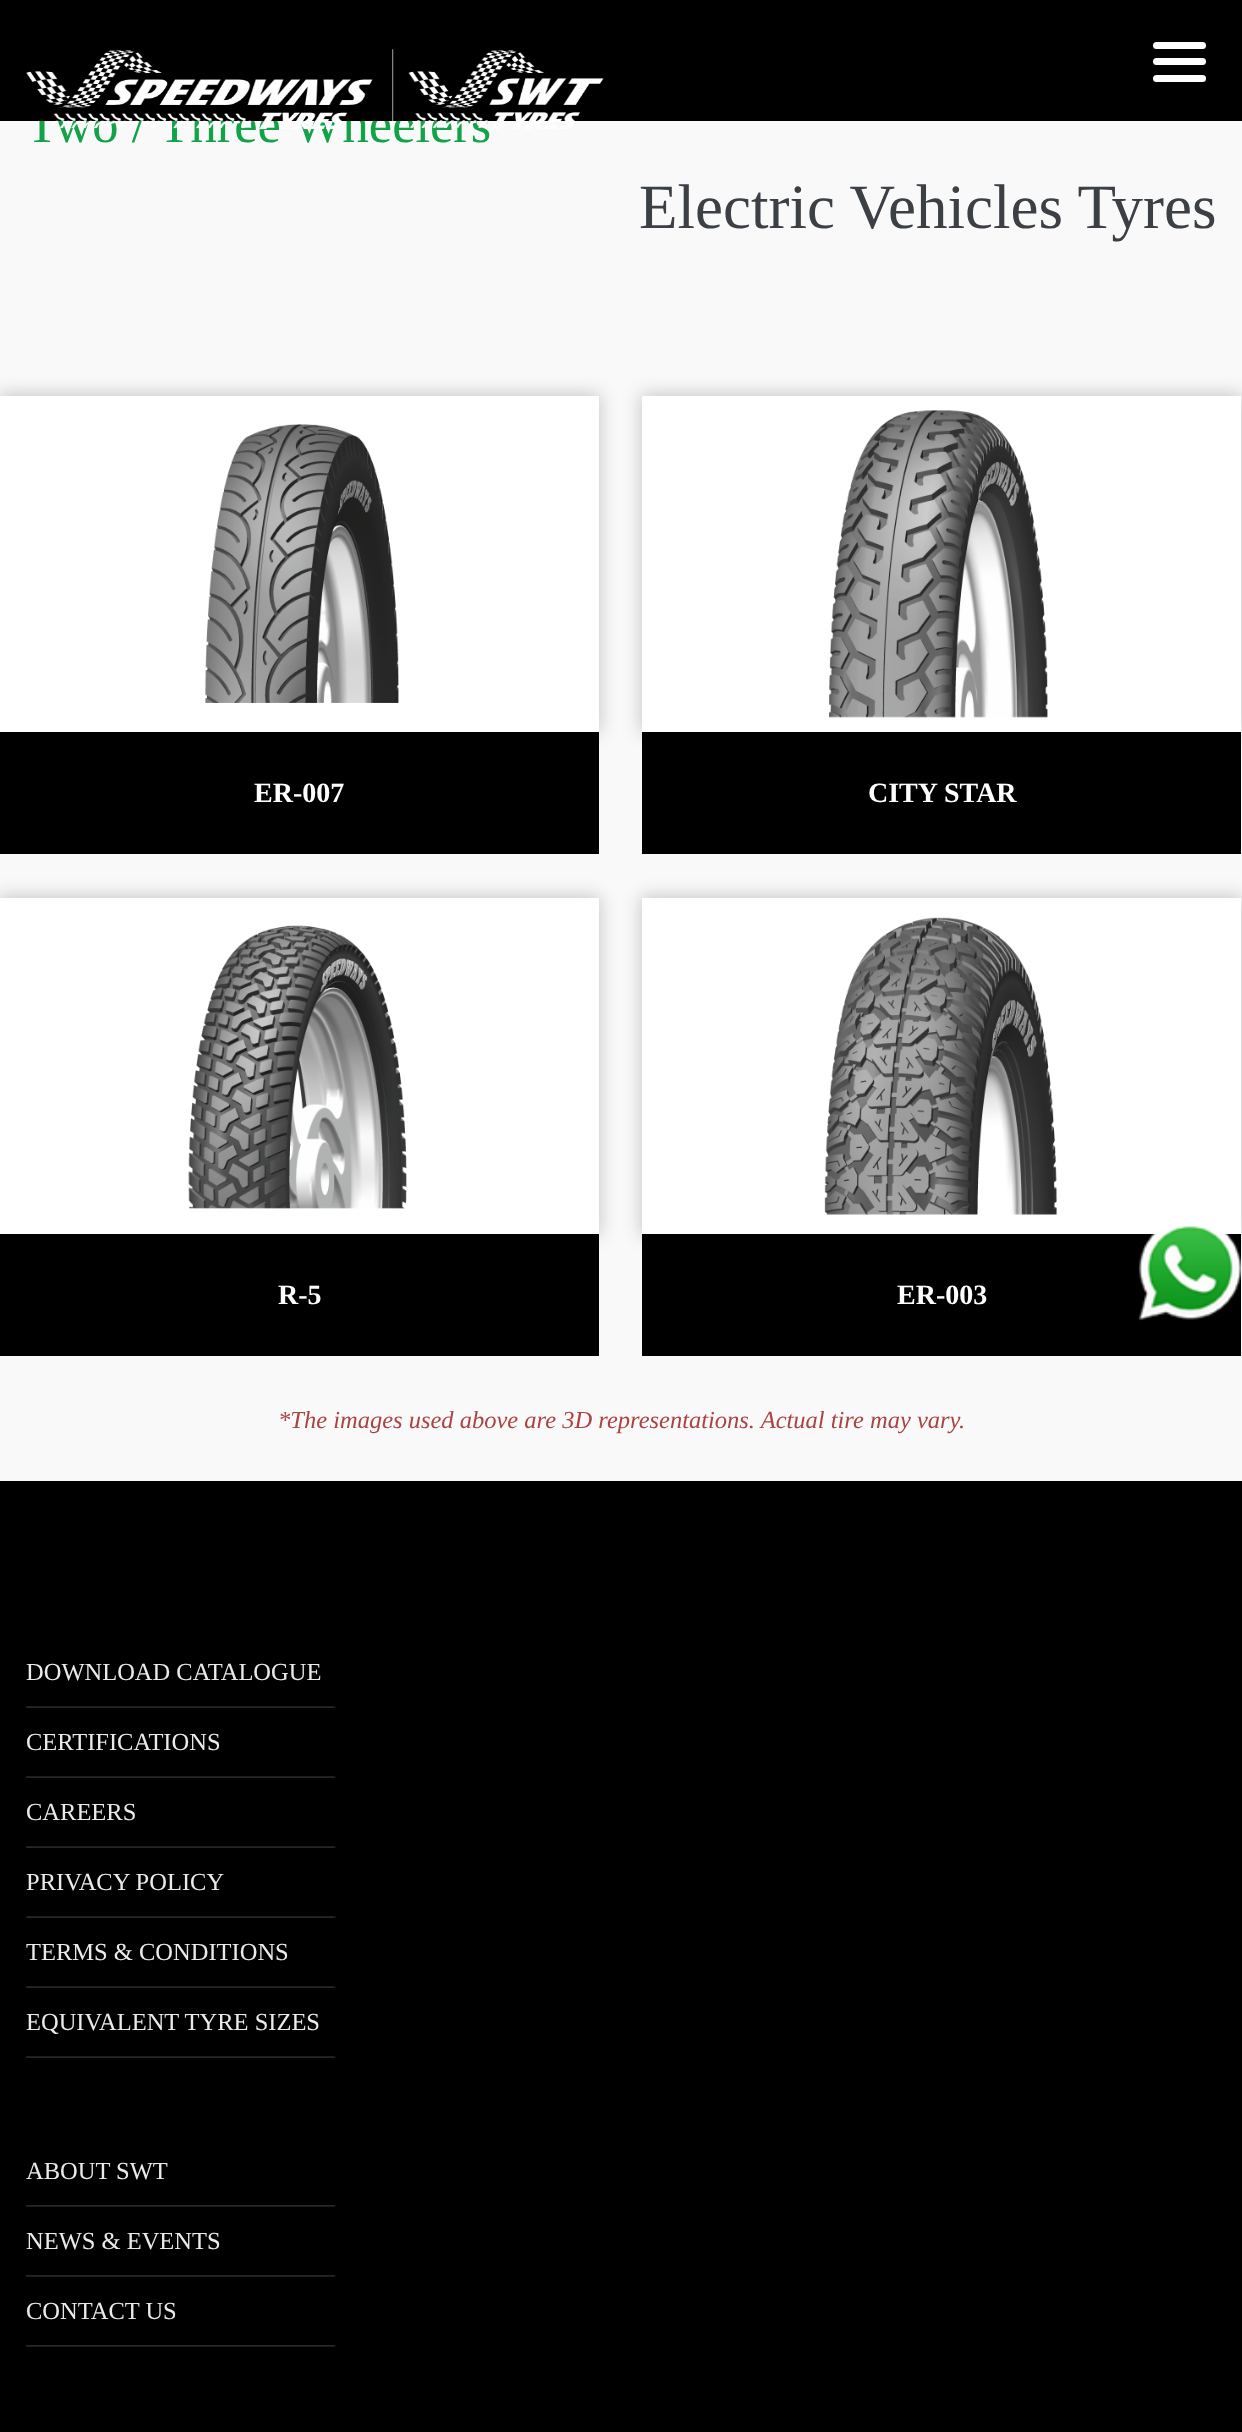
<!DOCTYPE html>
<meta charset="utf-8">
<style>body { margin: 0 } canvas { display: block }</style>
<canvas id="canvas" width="1242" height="2432"></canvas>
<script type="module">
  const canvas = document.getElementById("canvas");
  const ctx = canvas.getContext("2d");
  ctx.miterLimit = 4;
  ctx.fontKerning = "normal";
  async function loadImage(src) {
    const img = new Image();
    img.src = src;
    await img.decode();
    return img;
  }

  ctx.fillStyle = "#f9f9f9";
  ctx.fillRect(0, 0, 1242, 2432);
  ctx.font = "52.5px Liberation Serif";
  ctx.fillStyle = "#12a248";
  ctx.fillText("Two / Three Wheelers", 26, 142);
  ctx.fillStyle = "#000000";
  ctx.fillRect(0, 0, 1242, 121);
  ctx.drawImage(await loadImage("img1.png"), 26, 49, 578, 81);
  ctx.fillStyle = "#ffffff";
  ctx.beginPath();
  ctx.roundRect(1153, 42, 53, 7, 3.5);
  ctx.fill();
  ctx.beginPath();
  ctx.roundRect(1153, 58, 53, 7, 3.5);
  ctx.fill();
  ctx.beginPath();
  ctx.roundRect(1153, 75, 53, 7, 3.5);
  ctx.fill();
  ctx.font = "63px Liberation Serif";
  ctx.fillStyle = "#3c4044";
  ctx.fillText("Electric Vehicles Tyres", 639, 228);
  ctx.fillStyle = "#000000";
  ctx.fillRect(0, 732, 599, 122);
  ctx.fillStyle = "rgba(0, 0, 0, 0.2)";
  ctx.filter = "blur(9px)";
  ctx.beginPath();
  ctx.rect(-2, 394, 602, 339);
  ctx.fill();
  ctx.filter = "none";
  ctx.fillStyle = "#ffffff";
  ctx.fillRect(0, 396, 599, 336);
  ctx.drawImage(await loadImage("img2.png"), 205, 424, 194, 279);
  ctx.font = "bold 28px Liberation Serif";
  ctx.fillText("ER-007", 254, 802);
  ctx.fillStyle = "#000000";
  ctx.fillRect(642, 732, 599, 122);
  ctx.fillStyle = "rgba(0, 0, 0, 0.2)";
  ctx.filter = "blur(9px)";
  ctx.beginPath();
  ctx.rect(641, 394, 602, 339);
  ctx.fill();
  ctx.filter = "none";
  ctx.fillStyle = "#ffffff";
  ctx.fillRect(642, 396, 599, 336);
  ctx.drawImage(await loadImage("img3.png"), 829, 410, 219, 308);
  ctx.fillText("CITY STAR", 868, 802);
  ctx.fillStyle = "#000000";
  ctx.fillRect(0, 1234, 599, 122);
  ctx.fillStyle = "rgba(0, 0, 0, 0.2)";
  ctx.filter = "blur(9px)";
  ctx.beginPath();
  ctx.rect(-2, 896, 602, 340);
  ctx.fill();
  ctx.filter = "none";
  ctx.fillStyle = "#ffffff";
  ctx.fillRect(0, 898, 599, 336);
  ctx.drawImage(await loadImage("img4.png"), 188, 925, 219, 284);
  ctx.fillText("R-5", 278, 1304);
  ctx.fillStyle = "#000000";
  ctx.fillRect(642, 1234, 599, 122);
  ctx.fillStyle = "rgba(0, 0, 0, 0.2)";
  ctx.filter = "blur(9px)";
  ctx.beginPath();
  ctx.rect(641, 896, 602, 340);
  ctx.fill();
  ctx.filter = "none";
  ctx.fillStyle = "#ffffff";
  ctx.fillRect(642, 898, 599, 336);
  ctx.drawImage(await loadImage("img5.png"), 824, 917, 233, 298);
  ctx.fillText("ER-003", 897, 1304);
  ctx.font = "italic 24.5px Liberation Serif";
  ctx.fillStyle = "#a94442";
  ctx.fillText("*The images used above are 3D representations. Actual tire may vary.", 278, 1428);
  ctx.drawImage(await loadImage("img6.png"), 1138, 1226, 103, 95);
  ctx.fillStyle = "#000000";
  ctx.fillRect(0, 1481, 1242, 951);
  ctx.drawImage(await loadImage("img7.png"), 26, 1706, 310, 2);
  ctx.font = "24.5px Liberation Serif";
  ctx.fillStyle = "#eaeaea";
  ctx.fillText("DOWNLOAD CATALOGUE", 26, 1680);
  ctx.drawImage(await loadImage("img7.png"), 26, 1776, 310, 2);
  ctx.fillText("CERTIFICATIONS", 26, 1750);
  ctx.drawImage(await loadImage("img7.png"), 26, 1846, 310, 2);
  ctx.fillText("CAREERS", 26, 1820);
  ctx.drawImage(await loadImage("img7.png"), 26, 1916, 310, 2);
  ctx.fillText("PRIVACY POLICY", 26, 1890);
  ctx.drawImage(await loadImage("img7.png"), 26, 1986, 310, 2);
  ctx.fillText("TERMS & CONDITIONS", 26, 1960);
  ctx.drawImage(await loadImage("img7.png"), 26, 2056, 310, 2);
  ctx.fillText("EQUIVALENT TYRE SIZES", 26, 2030);
  ctx.drawImage(await loadImage("img8.png"), 26, 2205, 310, 2);
  ctx.fillText("ABOUT SWT", 26, 2179);
  ctx.drawImage(await loadImage("img8.png"), 26, 2275, 310, 2);
  ctx.fillText("NEWS & EVENTS", 26, 2249);
  ctx.drawImage(await loadImage("img8.png"), 26, 2345, 310, 2);
  ctx.fillText("CONTACT US", 26, 2319);
</script>
